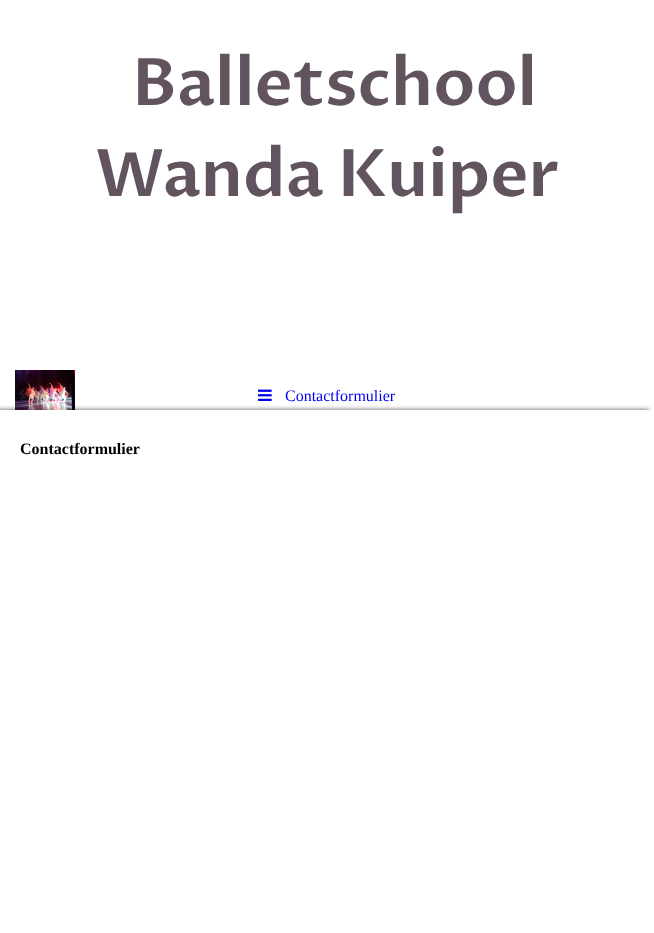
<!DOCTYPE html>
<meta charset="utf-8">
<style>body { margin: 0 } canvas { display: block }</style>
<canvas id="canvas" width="654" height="933"></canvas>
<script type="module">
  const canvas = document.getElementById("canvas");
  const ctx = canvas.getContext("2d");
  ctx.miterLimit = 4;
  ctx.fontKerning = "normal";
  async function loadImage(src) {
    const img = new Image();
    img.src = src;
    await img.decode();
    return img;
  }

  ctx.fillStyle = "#ffffff";
  ctx.fillRect(0, 0, 654, 933);
  ctx.font = "600 65.5px Proza Libre";
  ctx.fillStyle = "#61545f";
  ctx.fillText("Balletschool", 132, 105);
  ctx.fillText("Wanda Kuiper", 95, 196);
  ctx.save();
  ctx.beginPath();
  ctx.rect(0, 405, 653, 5);
  ctx.clip();
  ctx.fillStyle = "rgba(0, 0, 0, 0.7)";
  ctx.filter = "blur(2.5px)";
  ctx.beginPath();
  ctx.rect(-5, 410, 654, 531);
  ctx.fill();
  ctx.filter = "none";
  ctx.restore();
  ctx.drawImage(await loadImage("img1.png"), 15, 370, 60, 40);
  ctx.drawImage(await loadImage("img2.png"), 258, 389, 14, 12);
  ctx.font = "16px Liberation Serif";
  ctx.fillStyle = "#0000ee";
  ctx.fillText("Contactformulier", 285, 401);
  ctx.font = "bold 16px Liberation Serif";
  ctx.fillStyle = "#000000";
  ctx.fillText("Contactformulier", 20, 454);
</script>
